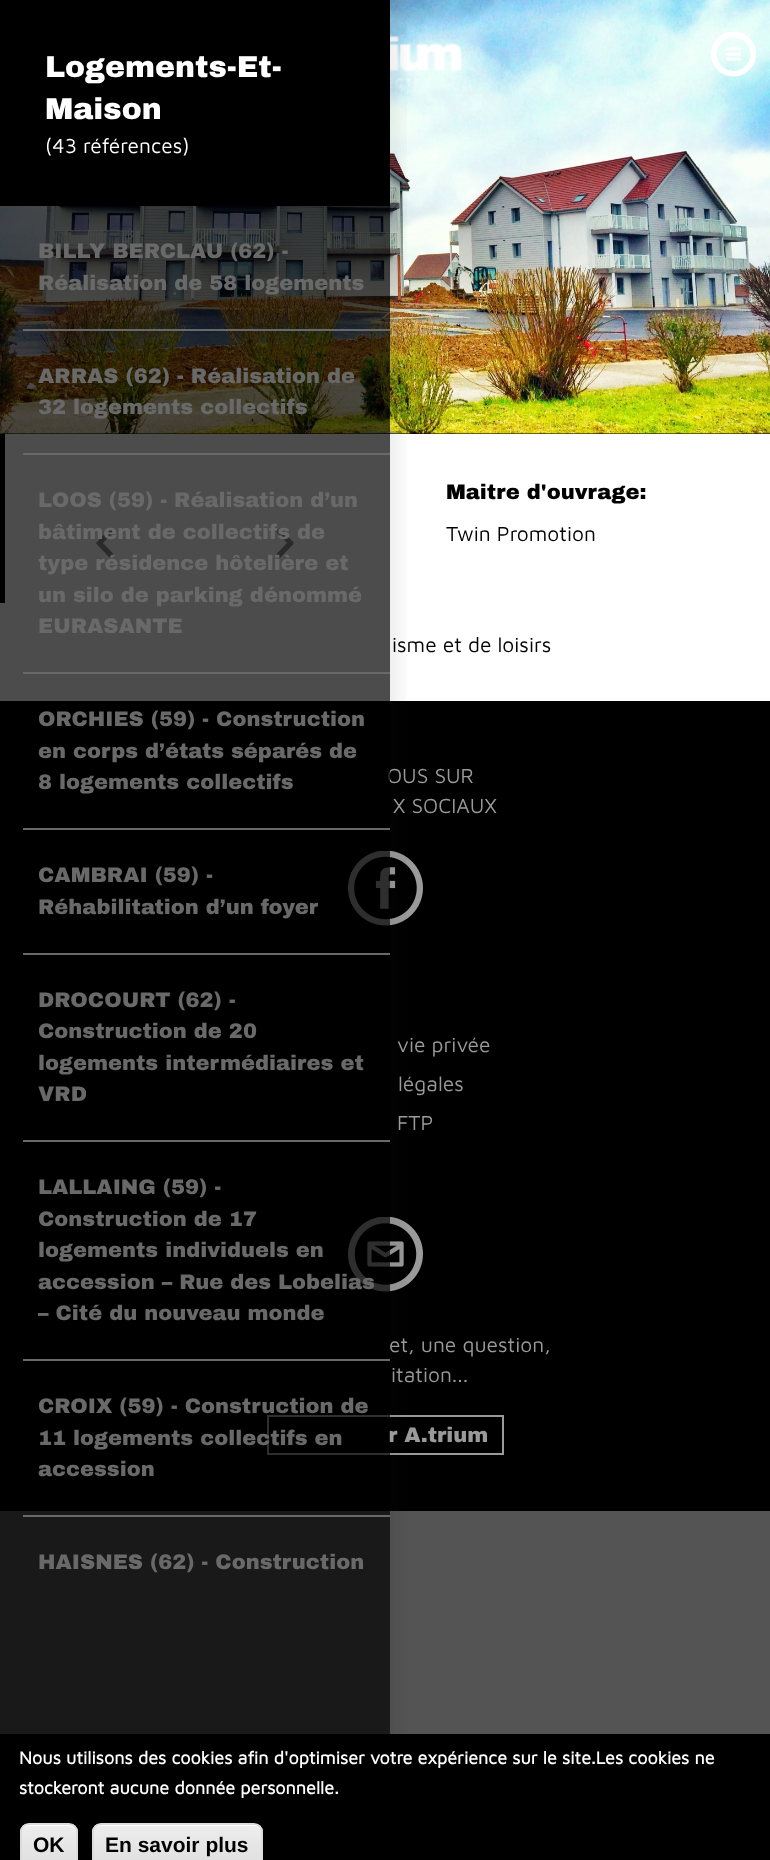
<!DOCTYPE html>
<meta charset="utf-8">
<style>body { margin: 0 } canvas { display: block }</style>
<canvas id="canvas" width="770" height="1860"></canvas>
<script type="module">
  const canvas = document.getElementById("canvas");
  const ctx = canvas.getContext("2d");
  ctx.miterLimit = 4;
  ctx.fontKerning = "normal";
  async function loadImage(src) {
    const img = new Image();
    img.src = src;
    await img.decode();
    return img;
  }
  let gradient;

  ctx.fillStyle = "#545454";
  ctx.fillRect(0, 0, 770, 1860);
  ctx.fillStyle = "#000000";
  ctx.fillRect(0, 433, 770, 1);
  ctx.drawImage(await loadImage("img3.png"), 0, 0, 770, 434);
  ctx.drawImage(await loadImage("img1.png"), 390, 35, 72, 54);
  ctx.fillStyle = "#ffffff";
  ctx.fillRect(5, 434, 765, 169);
  ctx.fillStyle = "#000000";
  ctx.fillRect(0, 434, 5, 169);
  ctx.fillStyle = "#8d8d8d";
  ctx.beginPath();
  ctx.moveTo(97.5, 545);
  ctx.lineTo(110, 558);
  ctx.lineTo(114, 554.5);
  ctx.lineTo(103, 543);
  ctx.lineTo(114, 531.5);
  ctx.lineTo(110, 528);
  ctx.lineTo(96, 543);
  ctx.closePath();
  ctx.fill();
  ctx.beginPath();
  ctx.moveTo(294, 543);
  ctx.lineTo(280, 528);
  ctx.lineTo(276, 531.5);
  ctx.lineTo(287, 543);
  ctx.lineTo(276, 554.5);
  ctx.lineTo(280, 558);
  ctx.lineTo(292.5, 545);
  ctx.closePath();
  ctx.fill();
  ctx.fillStyle = "#ffffff";
  ctx.fillRect(0, 603, 770, 98);
  ctx.fillStyle = "#000000";
  ctx.fillRect(0, 701, 770, 810);
  ctx.drawImage(await loadImage("img4.png"), 348, 851, 75, 75);
  ctx.drawImage(await loadImage("img5.png"), 348, 1217, 75, 75);
  ctx.strokeStyle = "#9a9a9a";
  ctx.lineWidth = 2;
  ctx.strokeRect(268, 1416, 235, 38);
  ctx.save();
  ctx.beginPath();
  ctx.rect(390, 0, 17, 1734);
  ctx.clip();
  ctx.fillStyle = "rgba(34, 36, 38, 0.15)";
  ctx.filter = "blur(15px)";
  ctx.beginPath();
  ctx.rect(0, 0, 390, 1860);
  ctx.fill();
  ctx.filter = "none";
  ctx.restore();
  ctx.fillRect(0, 0, 390, 206);
  ctx.font = "900 30px Archivo Black";
  ctx.fillStyle = "#ffffff";
  ctx.fillText("Logements-Et-", 45, 77);
  ctx.fillText("Maison", 45, 119);
  ctx.font = "21px Maven Pro";
  ctx.fillText("(43 références)", 45, 153);
  ctx.fillStyle = "#9a9a9a";
  ctx.fillText("OUS SUR", 387, 783);
  ctx.fillText("et, une question,", 389, 1352);
  ctx.font = "900 21px Archivo Black";
  ctx.fillText("r A.trium", 388, 1442);
  ctx.fillStyle = "rgba(0, 0, 0, 0.7)";
  ctx.fillRect(0, 206, 390, 1528);
  ctx.fillStyle = "#696969";
  ctx.fillText("BILLY BERCLAU (62) -", 38, 258);
  ctx.fillText("Réalisation de 58 logements", 38, 290);
  ctx.fillRect(23, 329, 367, 2);
  ctx.fillText("ARRAS (62) - Réalisation de", 38, 383);
  ctx.fillText("32 logements collectifs", 38, 414);
  ctx.fillRect(23, 453, 367, 2);
  ctx.fillText("LOOS (59) - Réalisation d’un", 38, 507);
  ctx.fillText("bâtiment de collectifs de", 38, 539);
  ctx.fillText("type résidence hôtelière et", 38, 570);
  ctx.fillText("un silo de parking dénommé", 38, 602);
  ctx.fillText("EURASANTE", 38, 633);
  ctx.fillRect(23, 672, 367, 2);
  ctx.fillText("ORCHIES (59) - Construction", 38, 726);
  ctx.fillText("en corps d’états séparés de", 38, 758);
  ctx.fillText("8 logements collectifs", 38, 789);
  ctx.fillRect(23, 828, 367, 2);
  ctx.fillText("CAMBRAI (59) -", 38, 882);
  ctx.fillText("Réhabilitation d’un foyer", 38, 914);
  ctx.fillRect(23, 953, 367, 2);
  ctx.fillText("DROCOURT (62) -", 38, 1007);
  ctx.fillText("Construction de 20", 38, 1038);
  ctx.fillText("logements intermédiaires et", 38, 1070);
  ctx.fillText("VRD", 38, 1101);
  ctx.fillRect(23, 1140, 367, 2);
  ctx.fillText("LALLAING (59) -", 38, 1194);
  ctx.fillText("Construction de 17", 38, 1226);
  ctx.fillText("logements individuels en", 38, 1257);
  ctx.fillText("accession – Rue des Lobelias", 38, 1289);
  ctx.fillText("– Cité du nouveau monde", 38, 1320);
  ctx.fillRect(23, 1359, 367, 2);
  ctx.fillText("CROIX (59) - Construction de", 38, 1413);
  ctx.fillText("11 logements collectifs en", 38, 1445);
  ctx.fillText("accession", 38, 1476);
  ctx.fillRect(23, 1515, 367, 2);
  ctx.fillText("HAISNES (62) - Construction", 38, 1569);
  ctx.drawImage(await loadImage("img2.png"), 711, 32, 45, 45);
  ctx.fillStyle = "#000000";
  ctx.fillText("Maitre d'ouvrage:", 446, 499);
  ctx.font = "21px Maven Pro";
  ctx.fillText("Twin Promotion", 446, 541);
  ctx.fillText("isme et de loisirs", 392, 652);
  ctx.fillStyle = "#9a9a9a";
  ctx.fillText("X SOCIAUX", 393, 813);
  ctx.fillText("vie privée", 397, 1052);
  ctx.fillText("légales", 398, 1091);
  ctx.fillText("FTP", 397, 1130);
  ctx.fillText("itation...", 391, 1382);
  ctx.fillStyle = "#000000";
  ctx.fillRect(0, 1734, 770, 126);
  ctx.font = "bold 18px Maven Pro";
  ctx.fillStyle = "#ffffff";
  ctx.fillText("Nous utilisons des cookies afin d'optimiser votre expérience sur le site.Les cookies ne", 19, 1764);
  ctx.fillText("stockeront aucune donnée personnelle.", 19, 1794);
  ctx.save();
  ctx.beginPath();
  ctx.roundRect(20, 1823, 58, 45, 9);
  ctx.clip();
  gradient = ctx.createLinearGradient(49, 1824, 49, 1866);
  gradient.addColorStop(0.05, "#ededed");
  gradient.addColorStop(1, "#dfdfdf");
  ctx.fillStyle = gradient;
  ctx.fillRect(20, 1824, 58, 36);
  ctx.restore();
  ctx.beginPath();
  ctx.moveTo(28, 1826);
  ctx.lineTo(62, 1826);
  ctx.bezierCurveTo(67, 1826, 75, 1825, 76, 1832);
  ctx.lineTo(76, 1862);
  ctx.bezierCurveTo(76, 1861, 77, 1860, 77, 1858);
  ctx.lineTo(77, 1832);
  ctx.bezierCurveTo(77, 1828, 73, 1824, 69, 1824);
  ctx.lineTo(29, 1824);
  ctx.bezierCurveTo(25, 1824, 21, 1828, 21, 1832);
  ctx.lineTo(21, 1833);
  ctx.bezierCurveTo(21, 1829, 24, 1826, 28, 1826);
  ctx.closePath();
  ctx.fill();
  ctx.beginPath();
  ctx.roundRect(21, 1824, 56, 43, 8);
  ctx.strokeStyle = "#dcdcdc";
  ctx.stroke();
  ctx.font = "bold 21px Liberation Sans";
  ctx.fillStyle = "#000000";
  ctx.fillText("OK", 33, 1852);
  ctx.save();
  ctx.beginPath();
  ctx.roundRect(92, 1823, 171, 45, 9);
  ctx.clip();
  gradient = ctx.createLinearGradient(177, 1824, 177, 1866);
  gradient.addColorStop(0.05, "#ededed");
  gradient.addColorStop(1, "#dfdfdf");
  ctx.fillStyle = gradient;
  ctx.fillRect(92, 1824, 171, 36);
  ctx.restore();
  ctx.fillStyle = "#ffffff";
  ctx.beginPath();
  ctx.moveTo(100, 1826);
  ctx.lineTo(254, 1826);
  ctx.bezierCurveTo(258, 1826, 261, 1829, 261, 1833);
  ctx.lineTo(261, 1832);
  ctx.bezierCurveTo(261, 1828, 257, 1824, 253, 1824);
  ctx.lineTo(101, 1824);
  ctx.bezierCurveTo(97, 1824, 93, 1828, 93, 1832);
  ctx.lineTo(93, 1833);
  ctx.bezierCurveTo(93, 1829, 96, 1826, 100, 1826);
  ctx.closePath();
  ctx.fill();
  ctx.beginPath();
  ctx.roundRect(93, 1824, 169, 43, 8);
  ctx.stroke();
  ctx.fillStyle = "#000000";
  ctx.fillText("En savoir plus", 105, 1852);
</script>
